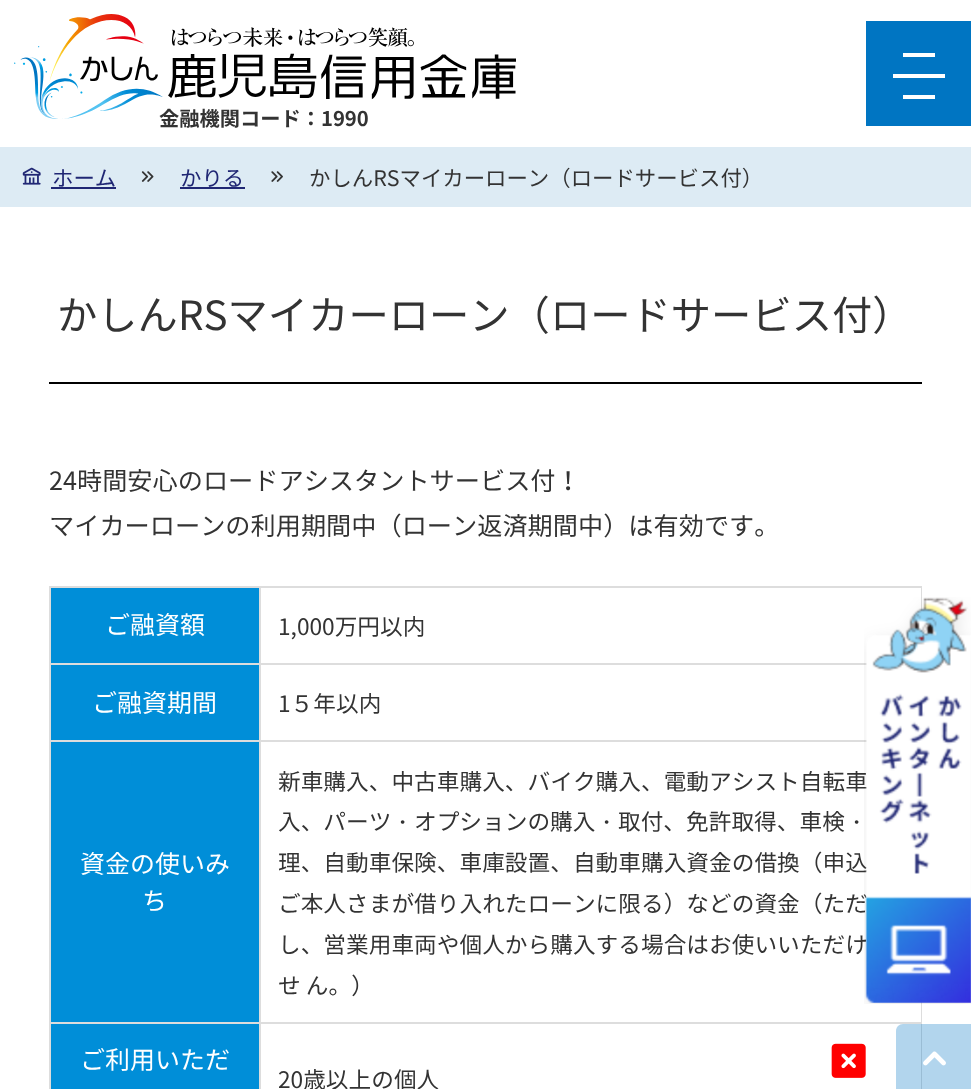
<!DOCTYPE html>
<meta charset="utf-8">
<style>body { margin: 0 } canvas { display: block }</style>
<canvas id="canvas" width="971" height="1089"></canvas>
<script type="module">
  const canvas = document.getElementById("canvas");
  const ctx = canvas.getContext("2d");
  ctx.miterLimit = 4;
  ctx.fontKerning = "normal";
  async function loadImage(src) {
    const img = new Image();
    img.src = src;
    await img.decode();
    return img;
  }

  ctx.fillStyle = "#ffffff";
  ctx.fillRect(0, 0, 971, 1089);
  ctx.drawImage(await loadImage("img1.png"), 14, 14, 502, 105);
  ctx.font = "bold 20.25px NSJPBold";
  ctx.fillStyle = "#333333";
  ctx.fillText("金融機関コード：1990", 159, 126);
  ctx.fillStyle = "#0075c2";
  ctx.fillRect(866, 21, 105, 105);
  ctx.fillStyle = "#ffffff";
  ctx.fillRect(903, 53, 32, 4);
  ctx.fillRect(893, 74, 52, 4);
  ctx.fillRect(903, 95, 32, 4);
  ctx.fillStyle = "#ddebf4";
  ctx.fillRect(0, 147, 971, 60);
  ctx.drawImage(await loadImage("img2.png"), 22, 167, 19, 18);
  ctx.font = "21.4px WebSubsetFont";
  ctx.fillStyle = "#202774";
  ctx.fillText("ホーム", 52, 186);
  ctx.fillRect(51, 187, 65, 2);
  ctx.drawImage(await loadImage("img3.png"), 141, 171, 13, 11);
  ctx.fillText("かりる", 180, 186);
  ctx.fillRect(180, 187, 65, 2);
  ctx.drawImage(await loadImage("img4.png"), 271, 171, 12, 11);
  ctx.fillStyle = "#333333";
  ctx.fillText("かしんRSマイカーローン（ロードサービス付）", 309, 186);
  ctx.fillStyle = "#000000";
  ctx.fillRect(49, 382, 873, 2);
  ctx.font = "40.3px WebSubsetFont";
  ctx.fillStyle = "#333333";
  ctx.fillText("かしんRSマイカーローン（ロードサービス付）", 57, 330);
  ctx.font = "25.2px WebSubsetFont";
  ctx.fillText("24時間安心のロードアシスタントサービス付！", 49, 490);
  ctx.fillText("マイカーローンの利用期間中（ローン返済期間中）は有効です。", 49, 535);
  ctx.fillStyle = "#dddddd";
  ctx.fillRect(49, 586, 873, 2);
  ctx.fillRect(49, 586, 2, 503);
  ctx.fillStyle = "#008ed8";
  ctx.fillRect(51, 588, 208, 75);
  ctx.fillStyle = "#dddddd";
  ctx.fillRect(259, 1022, 2, 67);
  ctx.fillRect(921, 1002, 1, 87);
  ctx.fillRect(259, 1022, 663, 2);
  ctx.fillRect(259, 740, 2, 284);
  ctx.fillRect(259, 740, 608, 2);
  ctx.fillRect(259, 663, 2, 79);
  ctx.fillRect(259, 663, 608, 2);
  ctx.fillRect(259, 586, 2, 79);
  ctx.fillRect(49, 663, 212, 2);
  ctx.font = "25px WebSubsetFont";
  ctx.fillStyle = "#ffffff";
  ctx.fillText("ご融資額", 105, 634);
  ctx.fillStyle = "#dddddd";
  ctx.fillRect(921, 586, 1, 26);
  ctx.font = "22.7px WebSubsetFont";
  ctx.fillStyle = "#333333";
  ctx.fillText("1,000万円以内", 278, 635);
  ctx.fillStyle = "#008ed8";
  ctx.fillRect(51, 665, 208, 75);
  ctx.fillStyle = "#dddddd";
  ctx.fillRect(49, 740, 212, 2);
  ctx.font = "25px WebSubsetFont";
  ctx.fillStyle = "#ffffff";
  ctx.fillText("ご融資期間", 92, 712);
  ctx.font = "22.7px WebSubsetFont";
  ctx.fillStyle = "#333333";
  ctx.fillText("1５年以内", 278, 712);
  ctx.fillStyle = "#008ed8";
  ctx.fillRect(51, 742, 208, 280);
  ctx.fillStyle = "#dddddd";
  ctx.fillRect(49, 1022, 212, 2);
  ctx.font = "25px WebSubsetFont";
  ctx.fillStyle = "#ffffff";
  ctx.fillText("資金の使いみ", 80, 873);
  ctx.fillText("ち", 142, 910);
  ctx.font = "22.7px WebSubsetFont";
  ctx.fillStyle = "#333333";
  ctx.fillText("新車購入、中古車購入、バイク購入、電動アシスト自転車", 278, 790);
  ctx.fillText("入、パーツ", 278, 830);
  ctx.font = "500 22.7px WenQuanYi Zen Hei";
  ctx.fillText("・", 391, 830);
  ctx.font = "22.7px WebSubsetFont";
  ctx.fillText("オプションの購入", 414, 830);
  ctx.font = "500 22.7px WenQuanYi Zen Hei";
  ctx.fillText("・", 595, 830);
  ctx.font = "22.7px WebSubsetFont";
  ctx.fillText("取付、免許取得、車検", 618, 830);
  ctx.font = "500 22.7px WenQuanYi Zen Hei";
  ctx.fillText("・", 845, 830);
  ctx.font = "22.7px WebSubsetFont";
  ctx.fillText("理、自動車保険、車庫設置、自動車購入資金の借換（申込", 278, 871);
  ctx.fillText("ご本人さまが借り入れたローンに限る）などの資金（ただ", 278, 912);
  ctx.fillText("し、営業用車両や個人から購入する場合はお使いいただけ", 278, 953);
  ctx.fillText("せ ん。）", 278, 994);
  ctx.fillStyle = "#008ed8";
  ctx.fillRect(51, 1024, 208, 65);
  ctx.font = "25px WebSubsetFont";
  ctx.fillStyle = "#ffffff";
  ctx.fillText("ご利用いただ", 80, 1069);
  ctx.font = "22.7px WebSubsetFont";
  ctx.fillStyle = "#333333";
  ctx.fillText("20歳以上の個人", 278, 1088);
  ctx.drawImage(await loadImage("img5.png"), 864, 597, 107, 407);
  ctx.drawImage(await loadImage("img6.png"), 831, 1043, 35, 35);
  ctx.fillStyle = "rgba(0, 117, 194, 0.3)";
  ctx.beginPath();
  ctx.moveTo(903, 1024);
  ctx.lineTo(971, 1024);
  ctx.lineTo(971, 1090);
  ctx.lineTo(896, 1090);
  ctx.lineTo(896, 1031);
  ctx.bezierCurveTo(896, 1027, 899, 1024, 903, 1024);
  ctx.closePath();
  ctx.fill();
  ctx.drawImage(await loadImage("img7.png"), 923, 1051, 23, 15);
</script>
